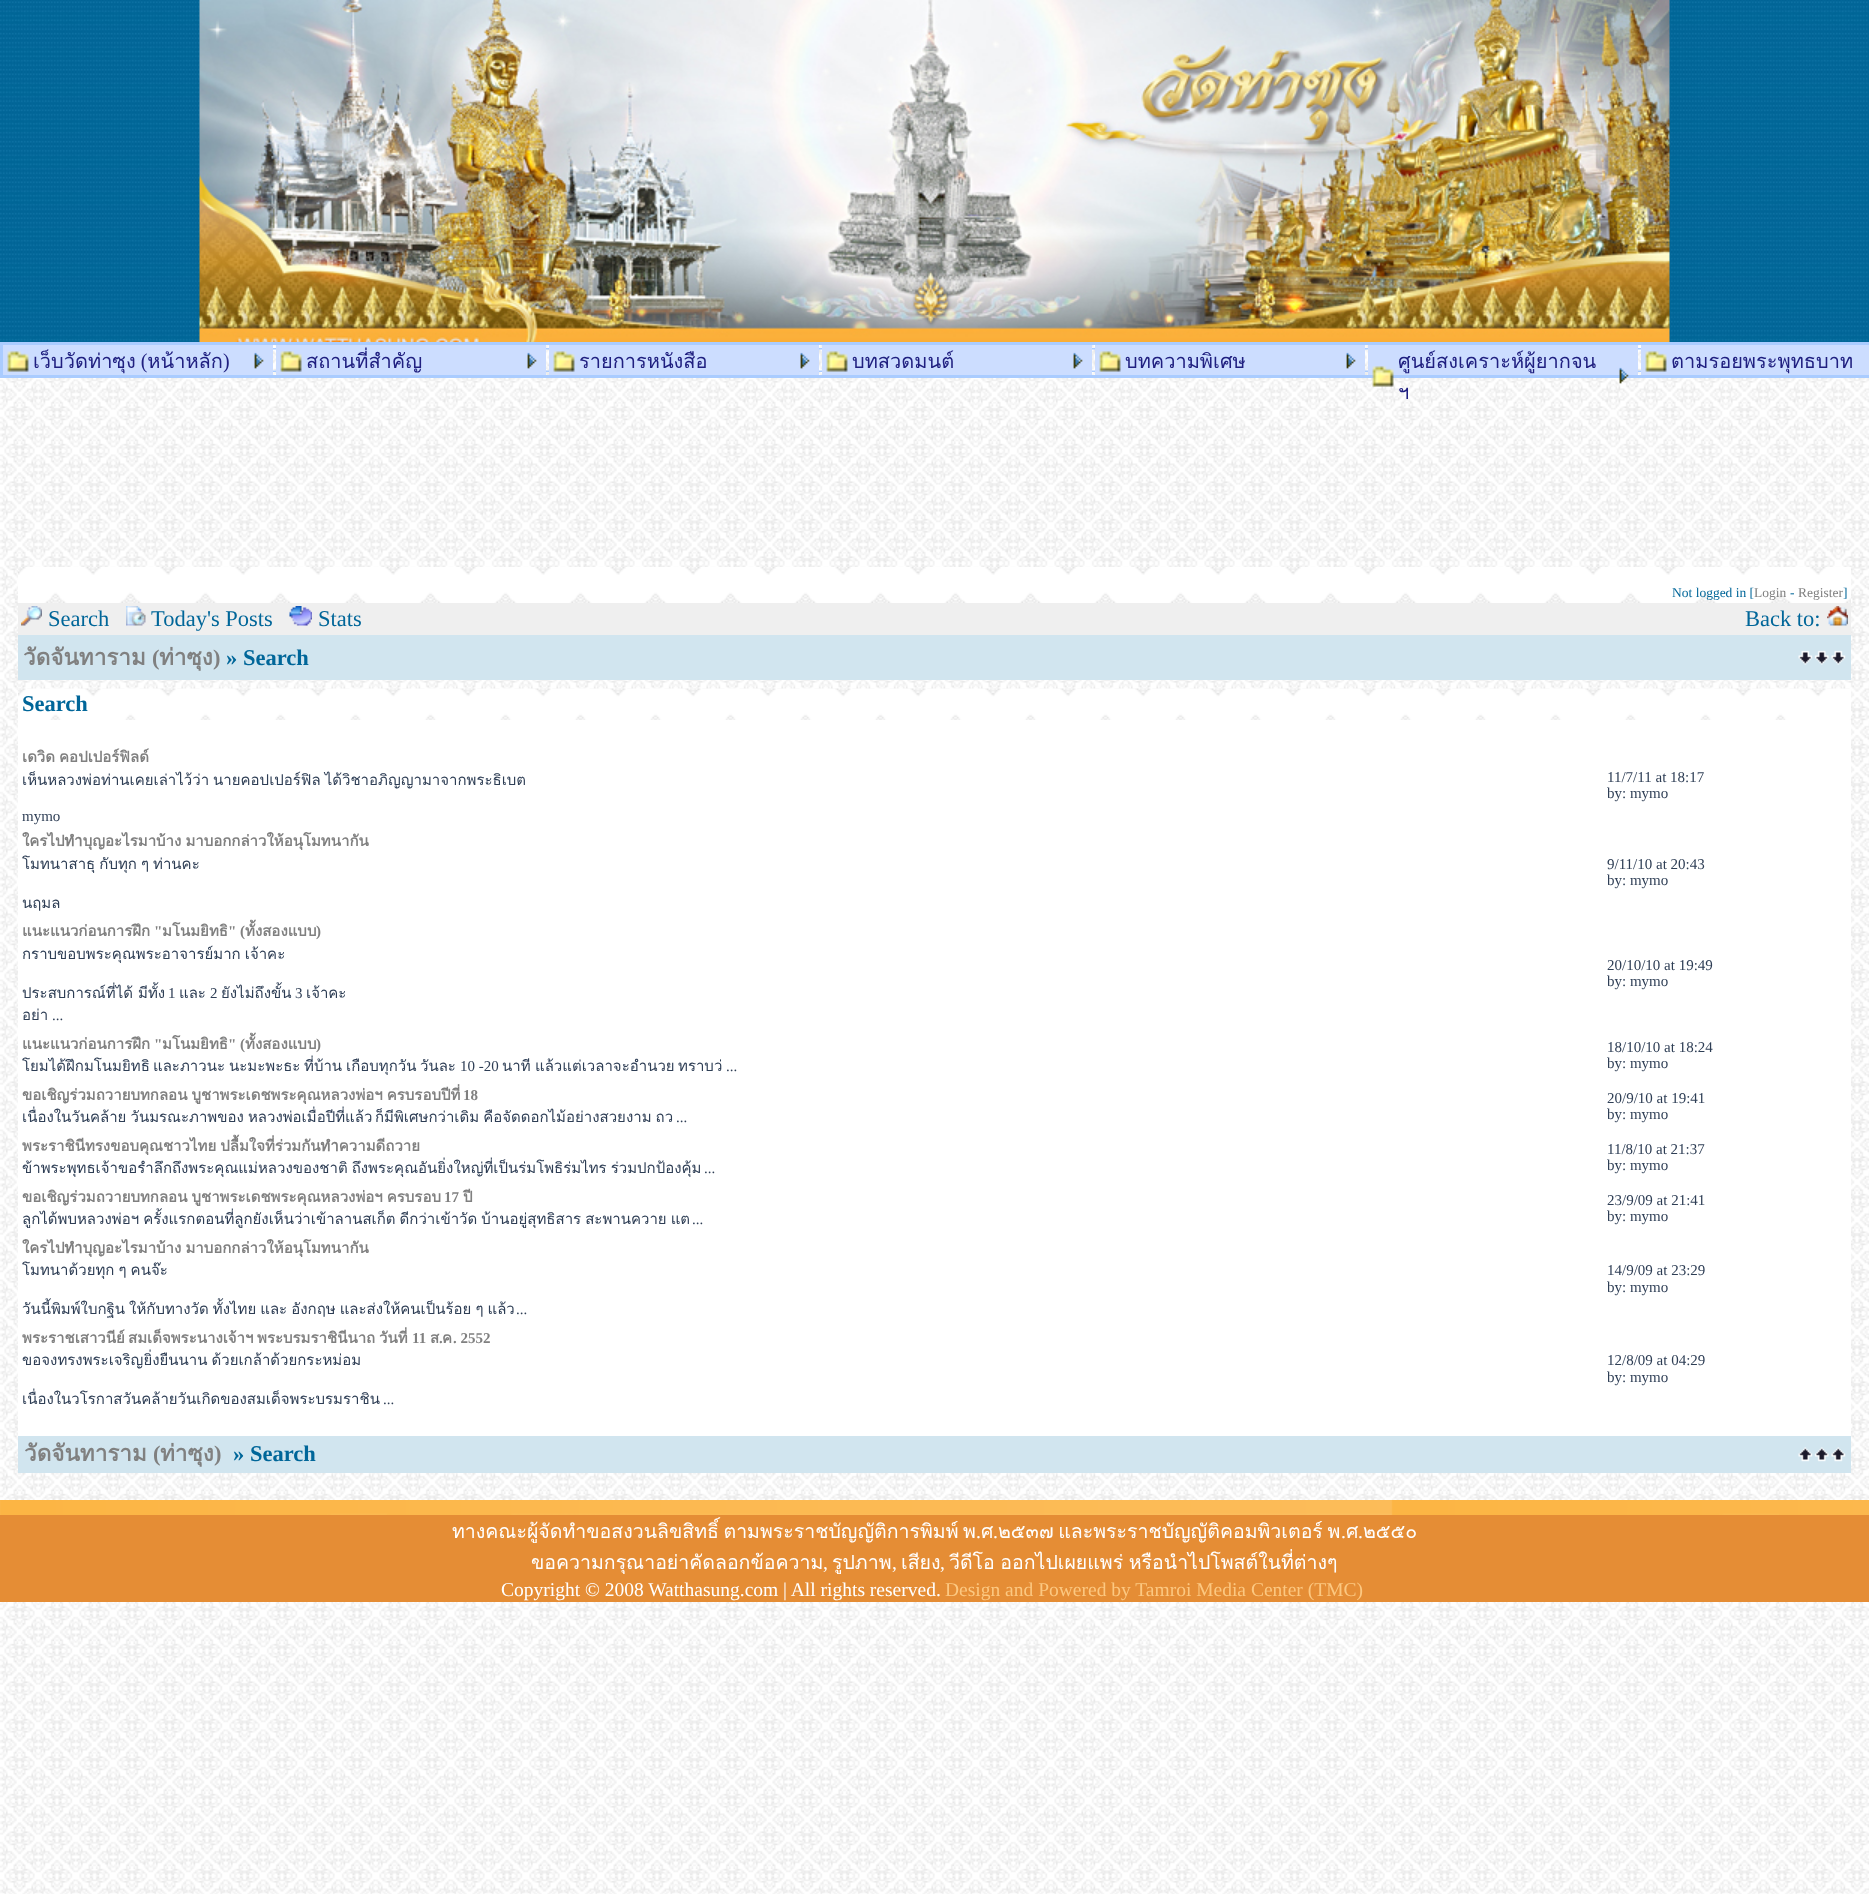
<!DOCTYPE html>
<meta charset="utf-8">
<style>body { margin: 0 } canvas { display: block }</style>
<canvas id="canvas" width="1869" height="1894"></canvas>
<script type="module">
  const canvas = document.getElementById("canvas");
  const ctx = canvas.getContext("2d");
  ctx.miterLimit = 4;
  ctx.fontKerning = "normal";
  async function loadImage(src) {
    const img = new Image();
    img.src = src;
    await img.decode();
    return img;
  }

  ctx.fillStyle = "#ffffff";
  ctx.fillRect(0, 0, 1869, 1894);
  ctx.drawImage(await loadImage("img1.png"), 0, 345, 1869, 1549);
  ctx.drawImage(await loadImage("img2.png"), 0, 0, 1869, 342);
  ctx.drawImage(await loadImage("img3.png"), 0, 342, 1869, 57);
  ctx.fillStyle = "#efefef";
  ctx.fillRect(18, 603, 1833, 32);
  ctx.drawImage(await loadImage("img4.png"), 18, 567, 1833, 36);
  ctx.font = "13.5px Liberation Serif";
  ctx.fillStyle = "#006699";
  ctx.fillText("Not logged in [", 1672, 597);
  ctx.fillStyle = "#808080";
  ctx.fillText("Login", 1754, 597);
  ctx.fillStyle = "#006699";
  ctx.fillText("-", 1790, 597);
  ctx.fillStyle = "#808080";
  ctx.fillText("Register", 1798, 597);
  ctx.fillStyle = "#006699";
  ctx.fillText("]", 1843, 597);
  ctx.drawImage(await loadImage("img5.png"), 21, 606, 21, 20);
  ctx.font = "22.5px Liberation Serif";
  ctx.fillText("Search", 48, 626);
  ctx.drawImage(await loadImage("img6.png"), 126, 606, 20, 20);
  ctx.fillText("Today's Posts", 151, 626);
  ctx.drawImage(await loadImage("img7.png"), 289, 606, 23, 20);
  ctx.fillText("Stats", 318, 626);
  ctx.fillText("Back to:", 1745, 626);
  ctx.drawImage(await loadImage("img8.png"), 1827, 606, 21, 20);
  ctx.fillStyle = "#d1e5ef";
  ctx.fillRect(18, 635, 1833, 45);
  ctx.font = "bold 22.5px Loma";
  ctx.fillStyle = "#808080";
  ctx.fillText("วัดจันทาราม", 23, 665);
  ctx.font = "bold 22.5px Liberation Serif";
  ctx.fillText("(", 152, 665);
  ctx.font = "bold 22.5px Loma";
  ctx.fillText("ท่าซุง", 159, 665);
  ctx.font = "bold 22.5px Liberation Serif";
  ctx.fillText(")", 213, 665);
  ctx.fillStyle = "#006699";
  ctx.fillText("» Search", 226, 665);
  ctx.drawImage(await loadImage("img9.png"), 1798, 650, 48, 15);
  ctx.drawImage(await loadImage("img10.png"), 18, 688, 1833, 32);
  ctx.fillText("Search", 22, 711);
  ctx.fillStyle = "#ffffff";
  ctx.fillRect(18, 720, 1833, 716);
  ctx.wordSpacing = "-1px";
  ctx.font = "bold 15px Loma";
  ctx.fillStyle = "#808080";
  ctx.fillText("เดวิด คอปเปอร์ฟิลด์", 22, 762);
  ctx.font = "15px Loma";
  ctx.fillStyle = "#2e3e55";
  ctx.fillText("เห็นหลวงพ่อท่านเคยเล่าไว้ว่า นายคอปเปอร์ฟิล ได้วิชาอภิญญามาจากพระธิเบต", 22, 785);
  ctx.wordSpacing = "0px";
  ctx.font = "15px Liberation Serif";
  ctx.fillText("mymo", 22, 821);
  ctx.fillText("11/7/11 at 18:17", 1607, 782);
  ctx.fillText("by: mymo", 1607, 798);
  ctx.wordSpacing = "-1px";
  ctx.font = "bold 15px Loma";
  ctx.fillStyle = "#808080";
  ctx.fillText("ใครไปทำบุญอะไรมาบ้าง มาบอกกล่าวให้อนุโมทนากัน", 22, 846);
  ctx.font = "15px Loma";
  ctx.fillStyle = "#2e3e55";
  ctx.fillText("โมทนาสาธุ กับทุก ๆ ท่านคะ", 22, 869);
  ctx.wordSpacing = "0px";
  ctx.fillText("นฤมล", 22, 908);
  ctx.font = "15px Liberation Serif";
  ctx.fillText("9/11/10 at 20:43", 1607, 869);
  ctx.fillText("by: mymo", 1607, 885);
  ctx.font = "bold 15px Loma";
  ctx.fillStyle = "#808080";
  ctx.fillText("แนะแนวก่อนการฝึก", 22, 936);
  ctx.font = "bold 15px Liberation Serif";
  ctx.fillText("\"", 154, 936);
  ctx.font = "bold 15px Loma";
  ctx.fillText("มโนมยิทธิ", 162, 936);
  ctx.font = "bold 15px Liberation Serif";
  ctx.fillText("\" (", 228, 936);
  ctx.font = "bold 15px Loma";
  ctx.fillText("ทั้งสองแบบ", 245, 936);
  ctx.font = "bold 15px Liberation Serif";
  ctx.fillText(")", 316, 936);
  ctx.wordSpacing = "-1px";
  ctx.font = "15px Loma";
  ctx.fillStyle = "#2e3e55";
  ctx.fillText("กราบขอบพระคุณพระอาจารย์มาก เจ้าคะ", 22, 959);
  ctx.wordSpacing = "0px";
  ctx.fillText("ประสบการณ์ที่ได้ มีทั้ง", 22, 998);
  ctx.font = "15px Liberation Serif";
  ctx.fillText("1", 168, 998);
  ctx.font = "15px Loma";
  ctx.fillText("และ", 179, 998);
  ctx.font = "15px Liberation Serif";
  ctx.fillText("2", 210, 998);
  ctx.font = "15px Loma";
  ctx.fillText("ยังไม่ถึงขั้น", 221, 998);
  ctx.font = "15px Liberation Serif";
  ctx.fillText("3", 295, 998);
  ctx.font = "15px Loma";
  ctx.fillText("เจ้าคะ", 306, 998);
  ctx.fillText("อย่า", 22, 1020);
  ctx.font = "15px Liberation Serif";
  ctx.fillText("...", 52, 1020);
  ctx.fillText("20/10/10 at 19:49", 1607, 970);
  ctx.fillText("by: mymo", 1607, 986);
  ctx.font = "bold 15px Loma";
  ctx.fillStyle = "#808080";
  ctx.fillText("แนะแนวก่อนการฝึก", 22, 1049);
  ctx.font = "bold 15px Liberation Serif";
  ctx.fillText("\"", 154, 1049);
  ctx.font = "bold 15px Loma";
  ctx.fillText("มโนมยิทธิ", 162, 1049);
  ctx.font = "bold 15px Liberation Serif";
  ctx.fillText("\" (", 228, 1049);
  ctx.font = "bold 15px Loma";
  ctx.fillText("ทั้งสองแบบ", 245, 1049);
  ctx.font = "bold 15px Liberation Serif";
  ctx.fillText(")", 316, 1049);
  ctx.font = "15px Loma";
  ctx.fillStyle = "#2e3e55";
  ctx.fillText("โยมได้ฝึกมโนมยิทธิ", 22, 1071);
  ctx.fillText("และภาวนะ", 153, 1071);
  ctx.fillText("นะมะพะธะ", 229, 1071);
  ctx.fillText("ที่บ้าน", 304, 1071);
  ctx.fillText("เกือบทุกวัน", 346, 1071);
  ctx.fillText("วันละ", 420, 1071);
  ctx.font = "15px Liberation Serif";
  ctx.fillText("10 -20", 460, 1071);
  ctx.font = "15px Loma";
  ctx.fillText("นาที", 502, 1071);
  ctx.fillText("แล้วแต่เวลาจะอำนวย", 535, 1071);
  ctx.fillText("ทราบว่", 678, 1071);
  ctx.font = "15px Liberation Serif";
  ctx.fillText("...", 726, 1071);
  ctx.fillText("18/10/10 at 18:24", 1607, 1052);
  ctx.fillText("by: mymo", 1607, 1068);
  ctx.wordSpacing = "-1px";
  ctx.font = "bold 15px Loma";
  ctx.fillStyle = "#808080";
  ctx.fillText("ขอเชิญร่วมถวายบทกลอน บูชาพระเดชพระคุณหลวงพ่อฯ ครบรอบปีที่", 22, 1100);
  ctx.wordSpacing = "0px";
  ctx.font = "bold 15px Liberation Serif";
  ctx.fillText("18", 463, 1100);
  ctx.wordSpacing = "-1px";
  ctx.font = "15px Loma";
  ctx.fillStyle = "#2e3e55";
  ctx.fillText("เนื่องในวันคล้าย วันมรณะภาพของ หลวงพ่อเมื่อปีที่แล้ว", 22, 1122);
  ctx.fillText("ก็มีพิเศษกว่าเดิม คือจัดดอกไม้อย่างสวยงาม ถว", 375, 1122);
  ctx.wordSpacing = "0px";
  ctx.font = "15px Liberation Serif";
  ctx.fillText("...", 676, 1122);
  ctx.fillText("20/9/10 at 19:41", 1607, 1103);
  ctx.fillText("by: mymo", 1607, 1119);
  ctx.wordSpacing = "-1px";
  ctx.font = "bold 15px Loma";
  ctx.fillStyle = "#808080";
  ctx.fillText("พระราชินีทรงขอบคุณชาวไทย ปลื้มใจที่ร่วมกันทำความดีถวาย", 22, 1151);
  ctx.font = "15px Loma";
  ctx.fillStyle = "#2e3e55";
  ctx.fillText("ข้าพระพุทธเจ้าขอรำลึกถึงพระคุณแม่หลวงของชาติ ถึงพระคุณอันยิ่งใหญ่ที่เป็นร่มโพธิร่มไทร ร่วมปกป้องคุ้ม", 22, 1173);
  ctx.wordSpacing = "0px";
  ctx.font = "15px Liberation Serif";
  ctx.fillText("...", 704, 1173);
  ctx.fillText("11/8/10 at 21:37", 1607, 1154);
  ctx.fillText("by: mymo", 1607, 1170);
  ctx.wordSpacing = "-1px";
  ctx.font = "bold 15px Loma";
  ctx.fillStyle = "#808080";
  ctx.fillText("ขอเชิญร่วมถวายบทกลอน บูชาพระเดชพระคุณหลวงพ่อฯ ครบรอบ", 22, 1202);
  ctx.wordSpacing = "0px";
  ctx.font = "bold 15px Liberation Serif";
  ctx.fillText("17", 444, 1202);
  ctx.font = "bold 15px Loma";
  ctx.fillText("ปี", 463, 1202);
  ctx.wordSpacing = "-1px";
  ctx.font = "15px Loma";
  ctx.fillStyle = "#2e3e55";
  ctx.fillText("ลูกได้พบหลวงพ่อฯ ครั้งแรกตอนที่ลูกยังเห็นว่าเข้าลานสเก็ต ดีกว่าเข้าวัด บ้านอยู่สุทธิสาร สะพานควาย แต", 22, 1224);
  ctx.wordSpacing = "0px";
  ctx.font = "15px Liberation Serif";
  ctx.fillText("...", 692, 1224);
  ctx.fillText("23/9/09 at 21:41", 1607, 1205);
  ctx.fillText("by: mymo", 1607, 1221);
  ctx.wordSpacing = "-1px";
  ctx.font = "bold 15px Loma";
  ctx.fillStyle = "#808080";
  ctx.fillText("ใครไปทำบุญอะไรมาบ้าง มาบอกกล่าวให้อนุโมทนากัน", 22, 1253);
  ctx.font = "15px Loma";
  ctx.fillStyle = "#2e3e55";
  ctx.fillText("โมทนาด้วยทุก ๆ คนจ๊ะ", 22, 1275);
  ctx.fillText("วันนี้พิมพ์ใบกฐิน ให้กับทางวัด ทั้งไทย และ อังกฤษ และส่งให้คนเป็นร้อย ๆ แล้ว", 22, 1314);
  ctx.wordSpacing = "0px";
  ctx.font = "15px Liberation Serif";
  ctx.fillText("...", 516, 1314);
  ctx.fillText("14/9/09 at 23:29", 1607, 1275);
  ctx.fillText("by: mymo", 1607, 1292);
  ctx.font = "bold 15px Loma";
  ctx.fillStyle = "#808080";
  ctx.fillText("พระราชเสาวนีย์", 22, 1343);
  ctx.fillText("สมเด็จพระนางเจ้าฯ", 128, 1343);
  ctx.fillText("พระบรมราชินีนาถ", 257, 1343);
  ctx.fillText("วันที่", 379, 1343);
  ctx.font = "bold 15px Liberation Serif";
  ctx.fillText("11", 412, 1343);
  ctx.font = "bold 15px Loma";
  ctx.fillText("ส", 430, 1343);
  ctx.font = "bold 15px Liberation Serif";
  ctx.fillText(".", 439, 1343);
  ctx.font = "bold 15px Loma";
  ctx.fillText("ค", 442, 1343);
  ctx.font = "bold 15px Liberation Serif";
  ctx.fillText(". 2552", 453, 1343);
  ctx.wordSpacing = "-1px";
  ctx.font = "15px Loma";
  ctx.fillStyle = "#2e3e55";
  ctx.fillText("ขอจงทรงพระเจริญยิ่งยืนนาน ด้วยเกล้าด้วยกระหม่อม", 22, 1365);
  ctx.wordSpacing = "0px";
  ctx.fillText("เนื่องในวโรกาสวันคล้ายวันเกิดของสมเด็จพระบรมราชิน", 22, 1404);
  ctx.font = "15px Liberation Serif";
  ctx.fillText("...", 383, 1404);
  ctx.fillText("12/8/09 at 04:29", 1607, 1365);
  ctx.fillText("by: mymo", 1607, 1382);
  ctx.fillStyle = "#d1e5ef";
  ctx.fillRect(18, 1436, 1833, 37);
  ctx.font = "bold 22.5px Loma";
  ctx.fillStyle = "#808080";
  ctx.fillText("วัดจันทาราม", 24, 1461);
  ctx.font = "bold 22.5px Liberation Serif";
  ctx.fillText("(", 153, 1461);
  ctx.font = "bold 22.5px Loma";
  ctx.fillText("ท่าซุง", 160, 1461);
  ctx.font = "bold 22.5px Liberation Serif";
  ctx.fillText(")", 214, 1461);
  ctx.fillStyle = "#006699";
  ctx.fillText("» Search", 233, 1461);
  ctx.drawImage(await loadImage("img11.png"), 1798, 1447, 48, 15);
  ctx.fillStyle = "#e58d35";
  ctx.fillRect(0, 1515, 1869, 87);
  ctx.drawImage(await loadImage("img12.png"), 0, 1500, 1869, 15);
  ctx.wordSpacing = "-2px";
  ctx.font = "19.5px Loma";
  ctx.fillStyle = "#ffffff";
  ctx.fillText("ทางคณะผู้จัดทำขอสงวนลิขสิทธิ์ ตามพระราชบัญญัติการพิมพ์ พ", 452, 1538);
  ctx.wordSpacing = "0px";
  ctx.font = "19.5px Liberation Serif";
  ctx.fillText(".", 976, 1538);
  ctx.font = "19.5px Loma";
  ctx.fillText("ศ", 981, 1538);
  ctx.font = "19.5px Liberation Serif";
  ctx.fillText(".", 993, 1538);
  ctx.wordSpacing = "-2px";
  ctx.font = "19.5px Loma";
  ctx.fillText("๒๕๓๗ และพระราชบัญญัติคอมพิวเตอร์ พ", 998, 1538);
  ctx.wordSpacing = "0px";
  ctx.font = "19.5px Liberation Serif";
  ctx.fillText(".", 1341, 1538);
  ctx.font = "19.5px Loma";
  ctx.fillText("ศ", 1346, 1538);
  ctx.font = "19.5px Liberation Serif";
  ctx.fillText(".", 1358, 1538);
  ctx.font = "19.5px Loma";
  ctx.fillText("๒๕๕๐", 1363, 1538);
  ctx.fillText("ขอความกรุณาอย่าคัดลอกข้อความ", 531, 1569);
  ctx.font = "19.5px Liberation Serif";
  ctx.fillText(",", 823, 1569);
  ctx.font = "19.5px Loma";
  ctx.fillText("รูปภาพ", 832, 1569);
  ctx.fillText("เสียง", 901, 1569);
  ctx.font = "19.5px Liberation Serif";
  ctx.fillText(",", 940, 1569);
  ctx.wordSpacing = "-1px";
  ctx.font = "19.5px Loma";
  ctx.fillText("วีดีโอ ออกไปเผยแพร่ หรือนำไปโพสต์ในที่ต่างๆ", 949, 1569);
  ctx.wordSpacing = "0px";
  ctx.font = "19.5px Liberation Serif";
  ctx.fillText(",", 892, 1569);
  ctx.fillText("Copyright © 2008 Watthasung.com | All rights reserved.", 501, 1596);
  ctx.fillStyle = "#fcc881";
  ctx.fillText("Design and Powered by Tamroi Media Center (TMC)", 945, 1596);
</script>
